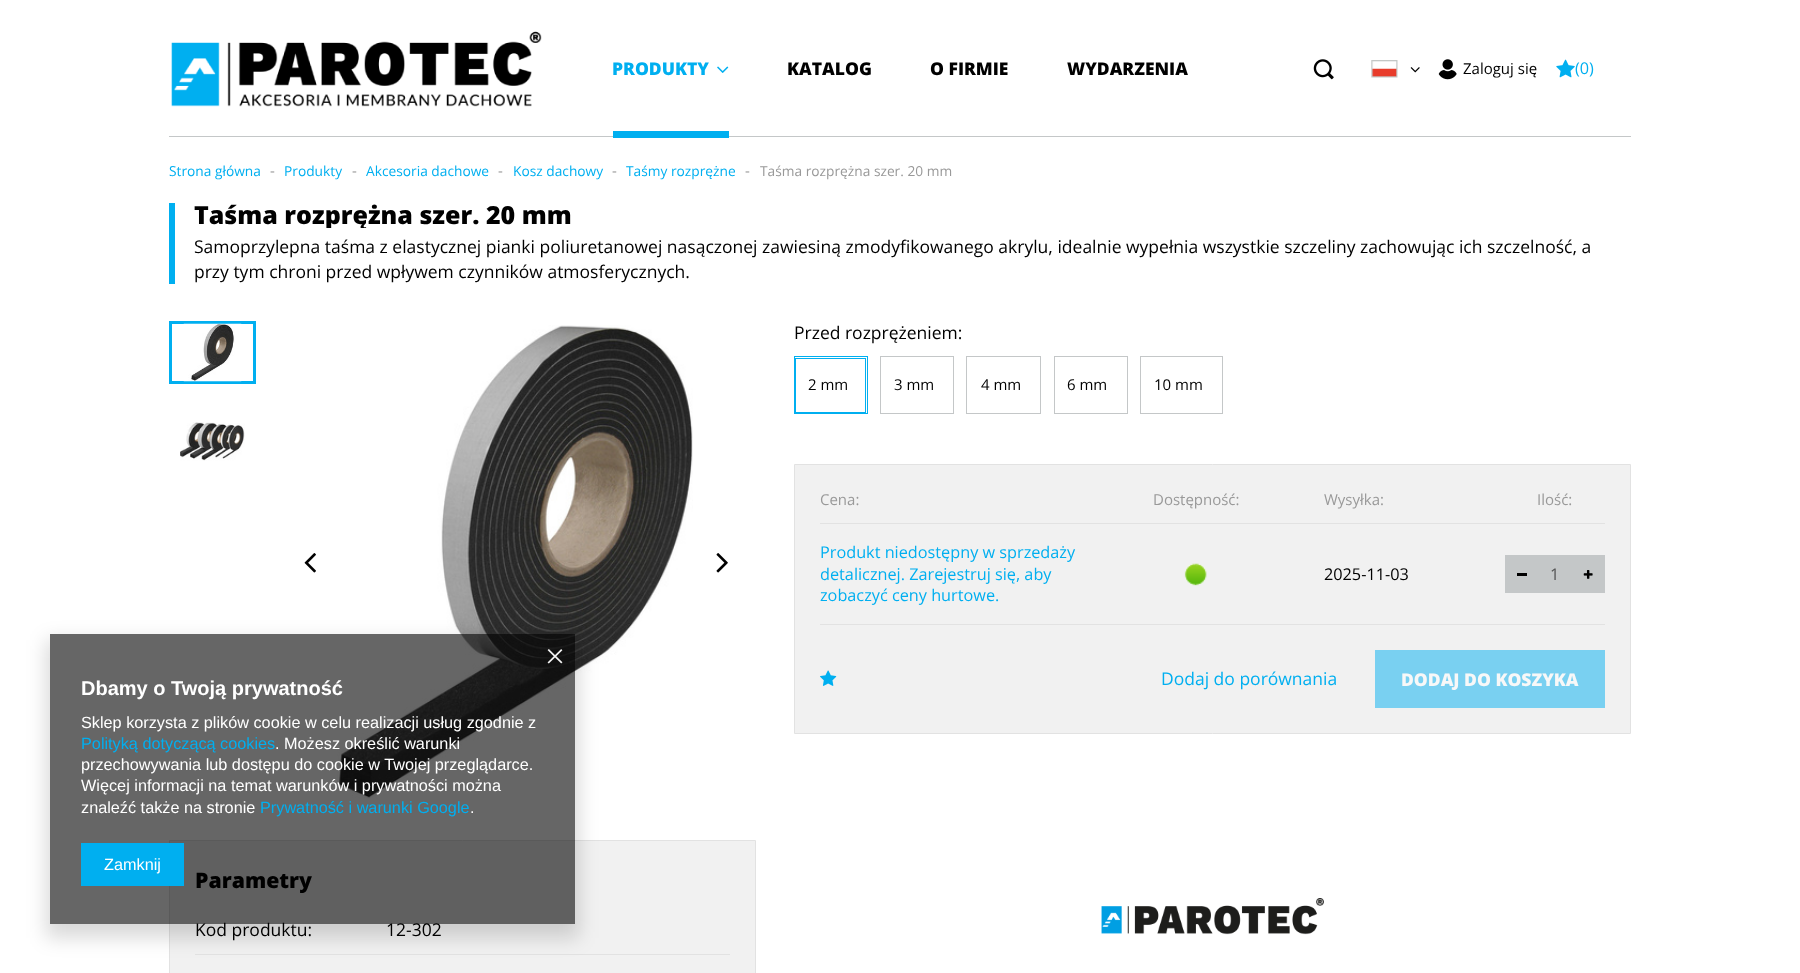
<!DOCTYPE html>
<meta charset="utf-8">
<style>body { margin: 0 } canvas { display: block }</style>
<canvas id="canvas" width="1800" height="973"></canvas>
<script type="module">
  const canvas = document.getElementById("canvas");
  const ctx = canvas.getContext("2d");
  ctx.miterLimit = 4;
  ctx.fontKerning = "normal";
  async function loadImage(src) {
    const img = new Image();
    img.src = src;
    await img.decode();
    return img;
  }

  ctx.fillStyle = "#ffffff";
  ctx.fillRect(0, 0, 1800, 973);
  ctx.drawImage(await loadImage("img1.png"), 171, 31, 371, 76);
  ctx.fillStyle = "#c4c7c8";
  ctx.fillRect(169, 136, 1462, 1);
  ctx.fillStyle = "#00aff0";
  ctx.fillRect(613, 131, 116, 7);
  ctx.font = "800 17.5px Open Sans";
  ctx.fillText("PRODUKTY", 612, 75);
  ctx.drawImage(await loadImage("img2.png"), 717, 66, 12, 7);
  ctx.fillStyle = "#000000";
  ctx.fillText("KATALOG", 787, 75);
  ctx.fillText("O FIRMIE", 930, 75);
  ctx.fillText("WYDARZENIA", 1067, 75);
  ctx.drawImage(await loadImage("img3.png"), 1313, 59, 21, 21);
  ctx.drawImage(await loadImage("img4.png"), 1371, 60, 27, 18);
  ctx.drawImage(await loadImage("img5.png"), 1410, 67, 10, 6);
  ctx.drawImage(await loadImage("img6.png"), 1438, 59, 19, 21);
  ctx.font = "15px Open Sans";
  ctx.fillText("Zaloguj się", 1463, 74);
  ctx.drawImage(await loadImage("img7.png"), 1556, 59, 19, 19);
  ctx.font = "16.25px Open Sans";
  ctx.fillStyle = "#00aff0";
  ctx.fillText("(0)", 1575, 74);
  ctx.font = "13.75px Open Sans";
  ctx.fillText("Strona główna", 169, 176);
  ctx.font = "15px Open Sans";
  ctx.fillStyle = "#999999";
  ctx.fillText("-", 270, 176);
  ctx.font = "13.75px Open Sans";
  ctx.fillStyle = "#00aff0";
  ctx.fillText("Produkty", 284, 176);
  ctx.font = "15px Open Sans";
  ctx.fillStyle = "#999999";
  ctx.fillText("-", 352, 176);
  ctx.font = "13.75px Open Sans";
  ctx.fillStyle = "#00aff0";
  ctx.fillText("Akcesoria dachowe", 366, 176);
  ctx.font = "15px Open Sans";
  ctx.fillStyle = "#999999";
  ctx.fillText("-", 498, 176);
  ctx.font = "13.75px Open Sans";
  ctx.fillStyle = "#00aff0";
  ctx.fillText("Kosz dachowy", 513, 176);
  ctx.font = "15px Open Sans";
  ctx.fillStyle = "#999999";
  ctx.fillText("-", 612, 176);
  ctx.font = "13.75px Open Sans";
  ctx.fillStyle = "#00aff0";
  ctx.fillText("Taśmy rozprężne", 626, 176);
  ctx.font = "15px Open Sans";
  ctx.fillStyle = "#999999";
  ctx.fillText("-", 745, 176);
  ctx.font = "13.75px Open Sans";
  ctx.fillText("Taśma rozprężna szer. 20 mm", 760, 176);
  ctx.fillStyle = "#00aff0";
  ctx.fillRect(169, 203, 6, 81);
  ctx.save();
  ctx.beginPath();
  ctx.rect(194, 203, 1425, 25);
  ctx.clip();
  ctx.font = "800 25px Open Sans";
  ctx.fillStyle = "#000000";
  ctx.fillText("Taśma rozprężna szer. 20 mm", 194, 224);
  ctx.restore();
  ctx.font = "17.5px Open Sans";
  ctx.fillStyle = "#000000";
  ctx.fillText("Samoprzylepna taśma z elastycznej pianki poliuretanowej nasączonej zawiesiną zmodyfikowanego akrylu, idealnie wypełnia wszystkie szczeliny zachowując ich szczelność, a", 194, 253);
  ctx.fillText("przy tym chroni przed wpływem czynników atmosferycznych.", 194, 278);
  ctx.strokeStyle = "#00aff0";
  ctx.lineWidth = 3;
  ctx.strokeRect(170.5, 322.5, 84, 60);
  ctx.drawImage(await loadImage("img8.png"), 183, 323, 59, 59);
  ctx.drawImage(await loadImage("img9.png"), 180, 422, 65, 39);
  ctx.drawImage(await loadImage("img10.png"), 304, 553, 12, 20);
  ctx.drawImage(await loadImage("img11.png"), 337, 325, 356, 474);
  ctx.drawImage(await loadImage("img12.png"), 716, 553, 12, 20);
  ctx.fillText("Przed rozprężeniem:", 794, 339);
  ctx.lineWidth = 1;
  ctx.strokeRect(795.5, 358.5, 70, 54);
  ctx.strokeRect(794.5, 356.5, 73, 57);
  ctx.font = "15px Open Sans";
  ctx.fillText("2 mm", 808, 390);
  ctx.strokeStyle = "#c4c7c8";
  ctx.strokeRect(880.5, 356.5, 73, 57);
  ctx.fillText("3 mm", 894, 390);
  ctx.strokeRect(966.5, 356.5, 74, 57);
  ctx.fillText("4 mm", 981, 390);
  ctx.strokeRect(1054.5, 356.5, 73, 57);
  ctx.fillText("6 mm", 1067, 390);
  ctx.strokeRect(1140.5, 356.5, 82, 57);
  ctx.fillText("10 mm", 1154, 390);
  ctx.fillStyle = "#f1f1f1";
  ctx.beginPath();
  ctx.rect(794.5, 464.5, 836, 269);
  ctx.fill();
  ctx.strokeStyle = "#e2e2e2";
  ctx.stroke();
  ctx.fillStyle = "#e2e2e2";
  ctx.fillRect(820, 624, 785, 1);
  ctx.fillRect(820, 523, 785, 1);
  ctx.fillStyle = "#999999";
  ctx.fillText("Cena:", 820, 505);
  ctx.font = "16.25px Open Sans";
  ctx.fillStyle = "#00aff0";
  ctx.fillText("Produkt niedostępny w sprzedaży", 820, 558);
  ctx.fillText("detalicznej. Zarejestruj się, aby", 820, 580);
  ctx.fillText("zobaczyć ceny hurtowe.", 820, 601);
  ctx.font = "15px Open Sans";
  ctx.fillStyle = "#999999";
  ctx.fillText("Dostępność:", 1153, 505);
  ctx.drawImage(await loadImage("img13.png"), 1184, 563, 23, 23);
  ctx.fillText("Wysyłka:", 1324, 505);
  ctx.font = "16.25px Open Sans";
  ctx.fillStyle = "#000000";
  ctx.fillText("2025-11-03", 1324, 580);
  ctx.font = "15px Open Sans";
  ctx.fillStyle = "#999999";
  ctx.fillText("Ilość:", 1537, 505);
  ctx.fillStyle = "#c4c7c8";
  ctx.fillRect(1505, 555, 100, 38);
  ctx.fillStyle = "#000000";
  ctx.fillRect(1517, 573, 10, 3);
  ctx.font = "16.25px Open Sans";
  ctx.fillStyle = "#545454";
  ctx.fillText("1", 1550, 580);
  ctx.drawImage(await loadImage("img14.png"), 1583, 570, 10, 9);
  ctx.drawImage(await loadImage("img15.png"), 820, 670, 17, 16);
  ctx.font = "17.5px Open Sans";
  ctx.fillStyle = "#00aff0";
  ctx.fillText("Dodaj do porównania", 1161, 685);
  ctx.fillStyle = "#79d0f1";
  ctx.fillRect(1375, 650, 230, 58);
  ctx.font = "800 17.5px Open Sans";
  ctx.fillStyle = "#f8f8f8";
  ctx.fillText("DODAJ DO KOSZYKA", 1401, 686);
  ctx.fillStyle = "#f1f1f1";
  ctx.beginPath();
  ctx.rect(169.5, 840.5, 586, 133);
  ctx.fill();
  ctx.stroke();
  ctx.font = "800 21.25px Open Sans";
  ctx.fillStyle = "#000000";
  ctx.fillText("Parametry", 195, 888);
  ctx.fillStyle = "#e2e2e2";
  ctx.fillRect(195, 954, 535, 1);
  ctx.font = "17.5px Open Sans";
  ctx.fillStyle = "#000000";
  ctx.fillText("Kod produktu:", 195, 936);
  ctx.fillText("12-302", 386, 936);
  ctx.drawImage(await loadImage("img16.png"), 1101, 898, 223, 37);
  ctx.save();
  ctx.beginPath();
  ctx.moveTo(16, 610);
  ctx.lineTo(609, 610);
  ctx.lineTo(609, 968);
  ctx.lineTo(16, 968);
  ctx.closePath();
  ctx.moveTo(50, 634);
  ctx.lineTo(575, 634);
  ctx.lineTo(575, 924);
  ctx.lineTo(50, 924);
  ctx.closePath();
  ctx.clip("evenodd");
  ctx.fillStyle = "rgba(0, 0, 0, 0.15)";
  ctx.filter = "blur(9.5px)";
  ctx.beginPath();
  ctx.rect(46, 640, 533, 298);
  ctx.fill();
  ctx.filter = "none";
  ctx.restore();
  ctx.fillStyle = "rgba(0, 0, 0, 0.6)";
  ctx.fillRect(50, 634, 525, 290);
  ctx.drawImage(await loadImage("img17.png"), 547, 649, 16, 15);
  ctx.font = "bold 20px Liberation Sans";
  ctx.fillStyle = "#ffffff";
  ctx.fillText("Dbamy o Twoją prywatność", 81, 695);
  ctx.font = "16.25px Liberation Sans";
  ctx.fillText("Sklep korzysta z plików cookie w celu realizacji usług zgodnie z", 81, 728);
  ctx.fillStyle = "#00aff0";
  ctx.fillText("Polityką dotyczącą cookies", 81, 749);
  ctx.fillStyle = "#ffffff";
  ctx.fillText(". Możesz określić warunki", 275, 749);
  ctx.fillText("przechowywania lub dostępu do cookie w Twojej przeglądarce.", 81, 770);
  ctx.fillText("Więcej informacji na temat warunków i prywatności można", 81, 791);
  ctx.fillText("znaleźć także na stronie", 81, 813);
  ctx.fillStyle = "#00aff0";
  ctx.fillText("Prywatność i warunki Google", 260, 813);
  ctx.fillStyle = "#ffffff";
  ctx.fillText(".", 470, 813);
  ctx.fillStyle = "#00aff0";
  ctx.fillRect(81, 843, 103, 43);
  ctx.fillStyle = "#ffffff";
  ctx.fillText("Zamknij", 104, 870);
</script>
